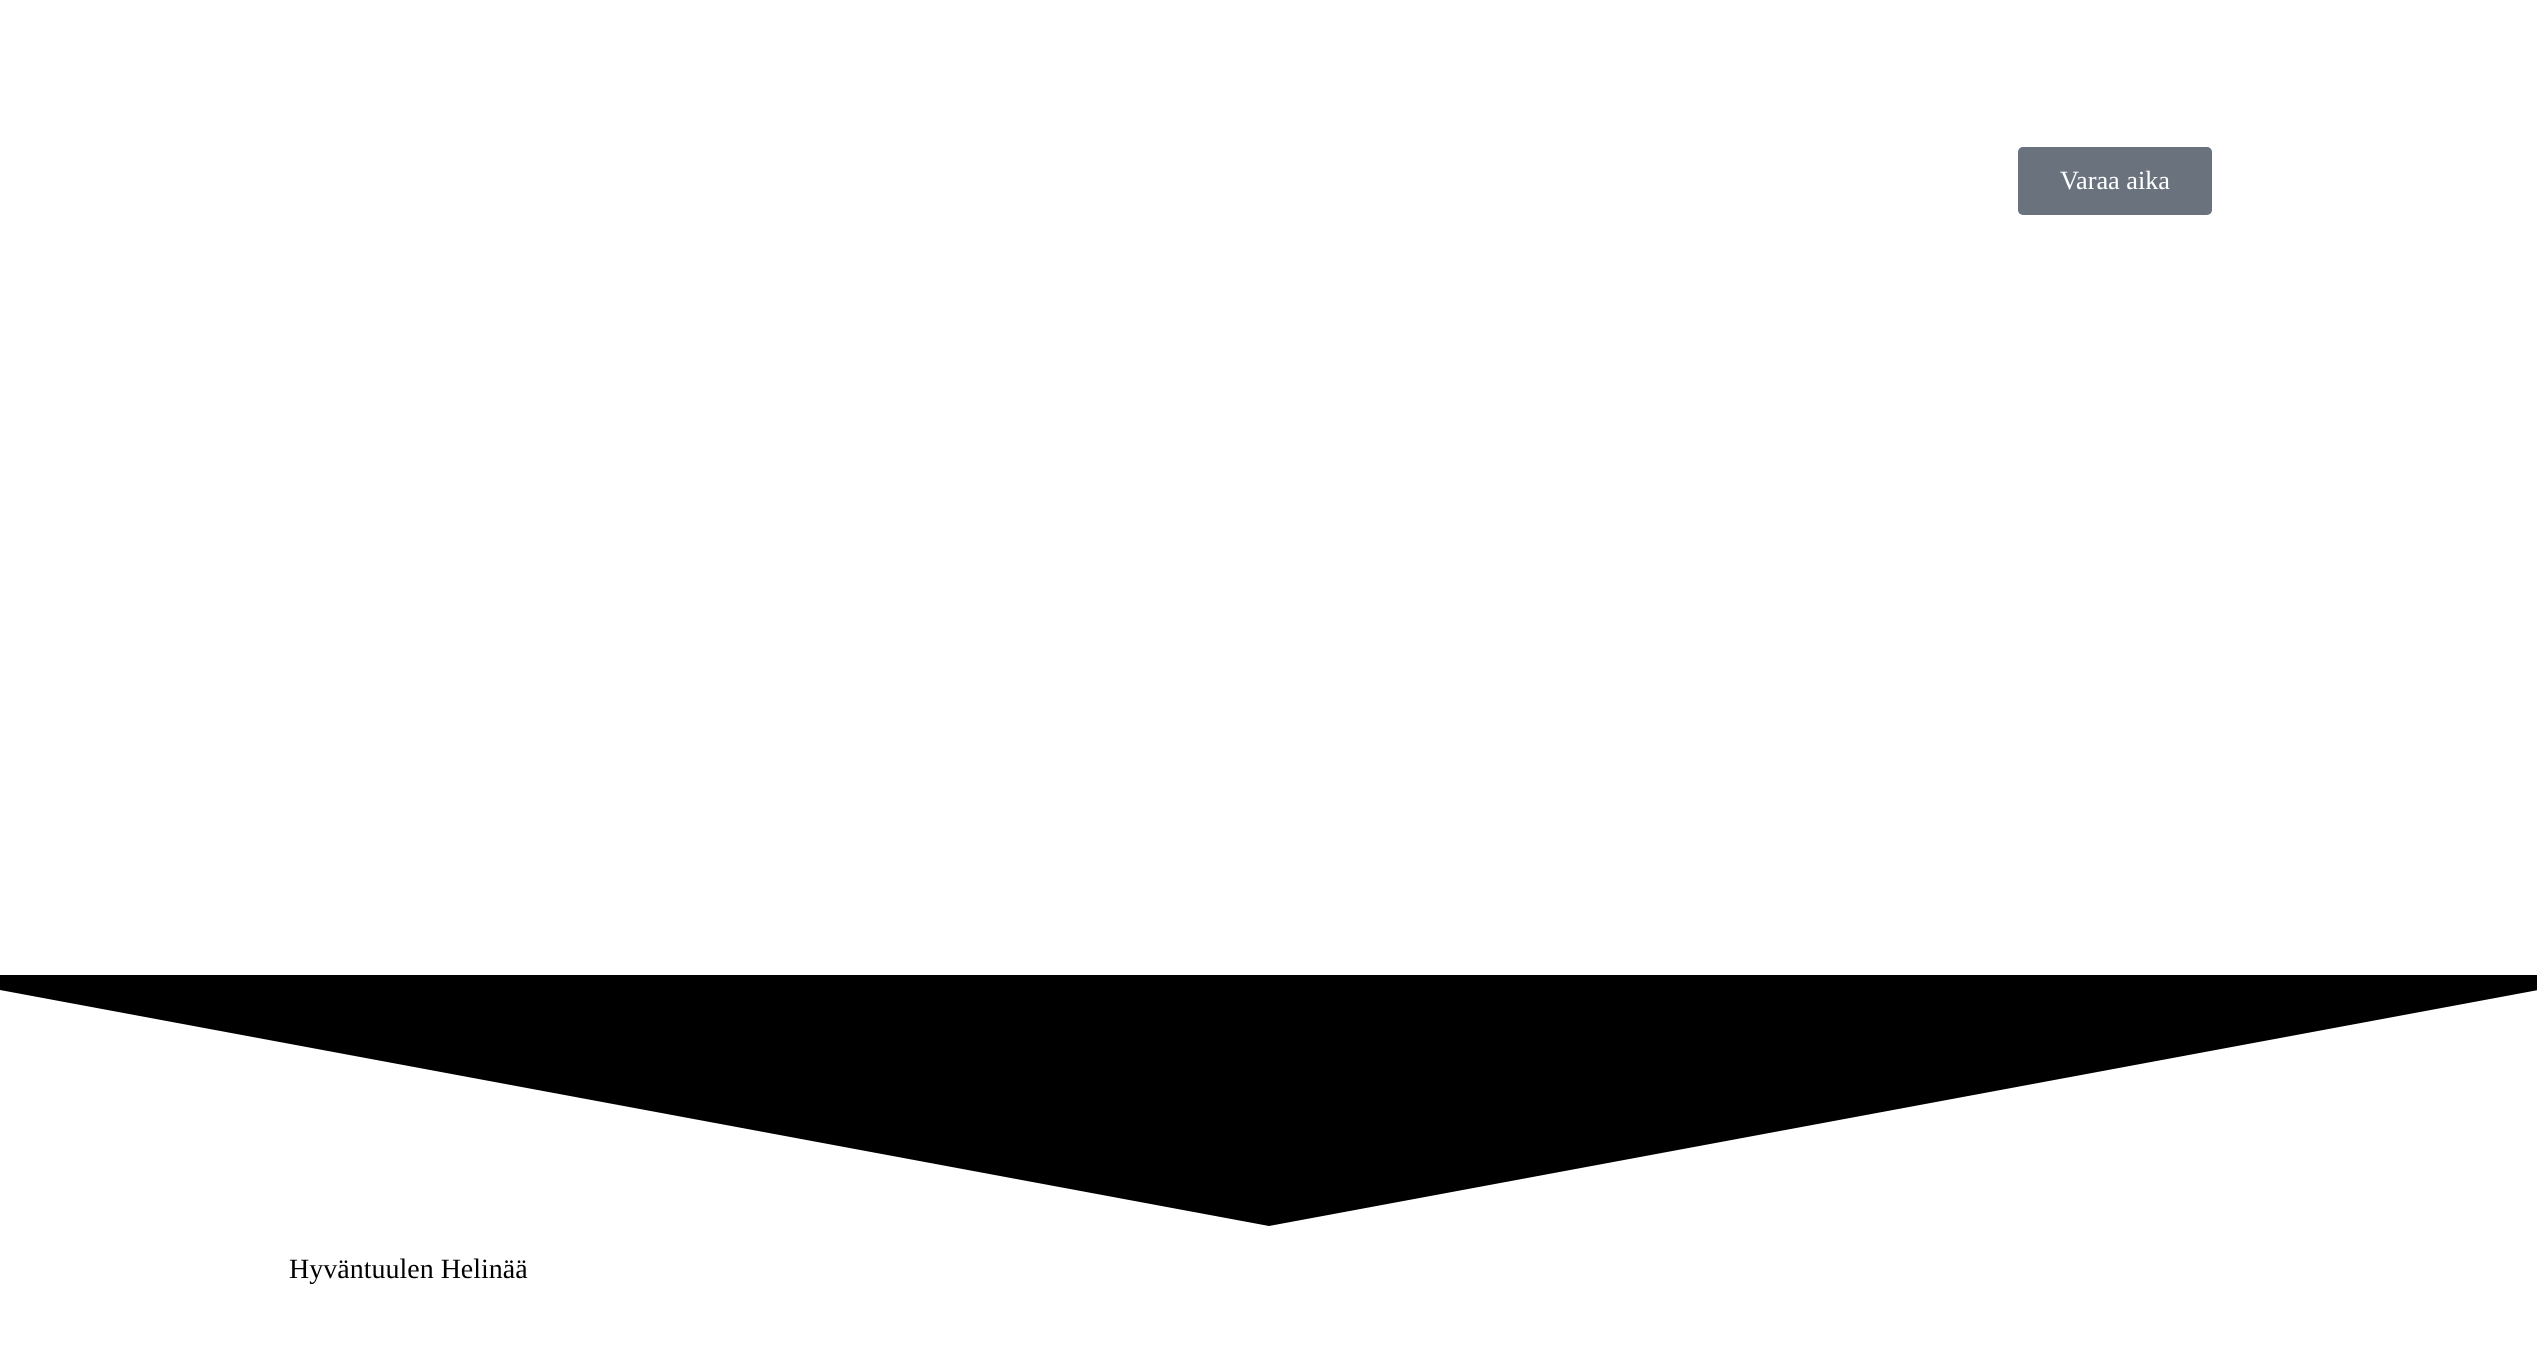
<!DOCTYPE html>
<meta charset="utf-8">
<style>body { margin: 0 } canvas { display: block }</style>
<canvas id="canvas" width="2537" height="1349"></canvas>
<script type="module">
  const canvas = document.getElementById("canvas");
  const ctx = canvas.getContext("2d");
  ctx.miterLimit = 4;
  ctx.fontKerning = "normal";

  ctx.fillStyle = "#ffffff";
  ctx.fillRect(0, 0, 2537, 1349);
  ctx.fillStyle = "#69727d";
  ctx.beginPath();
  ctx.roundRect(2018, 147, 194, 68, 5);
  ctx.fill();
  ctx.font = "26.25px Liberation Serif";
  ctx.fillStyle = "#ffffff";
  ctx.fillText("Varaa aika", 2060, 189);
  ctx.fillStyle = "#000000";
  ctx.beginPath();
  ctx.moveTo(1269, 1226);
  ctx.lineTo(0, 990);
  ctx.lineTo(0, 975);
  ctx.lineTo(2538, 975);
  ctx.lineTo(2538, 990);
  ctx.closePath();
  ctx.fill();
  ctx.font = "28px Liberation Serif";
  ctx.fillText("Hyväntuulen Helinää", 289, 1278);
</script>
